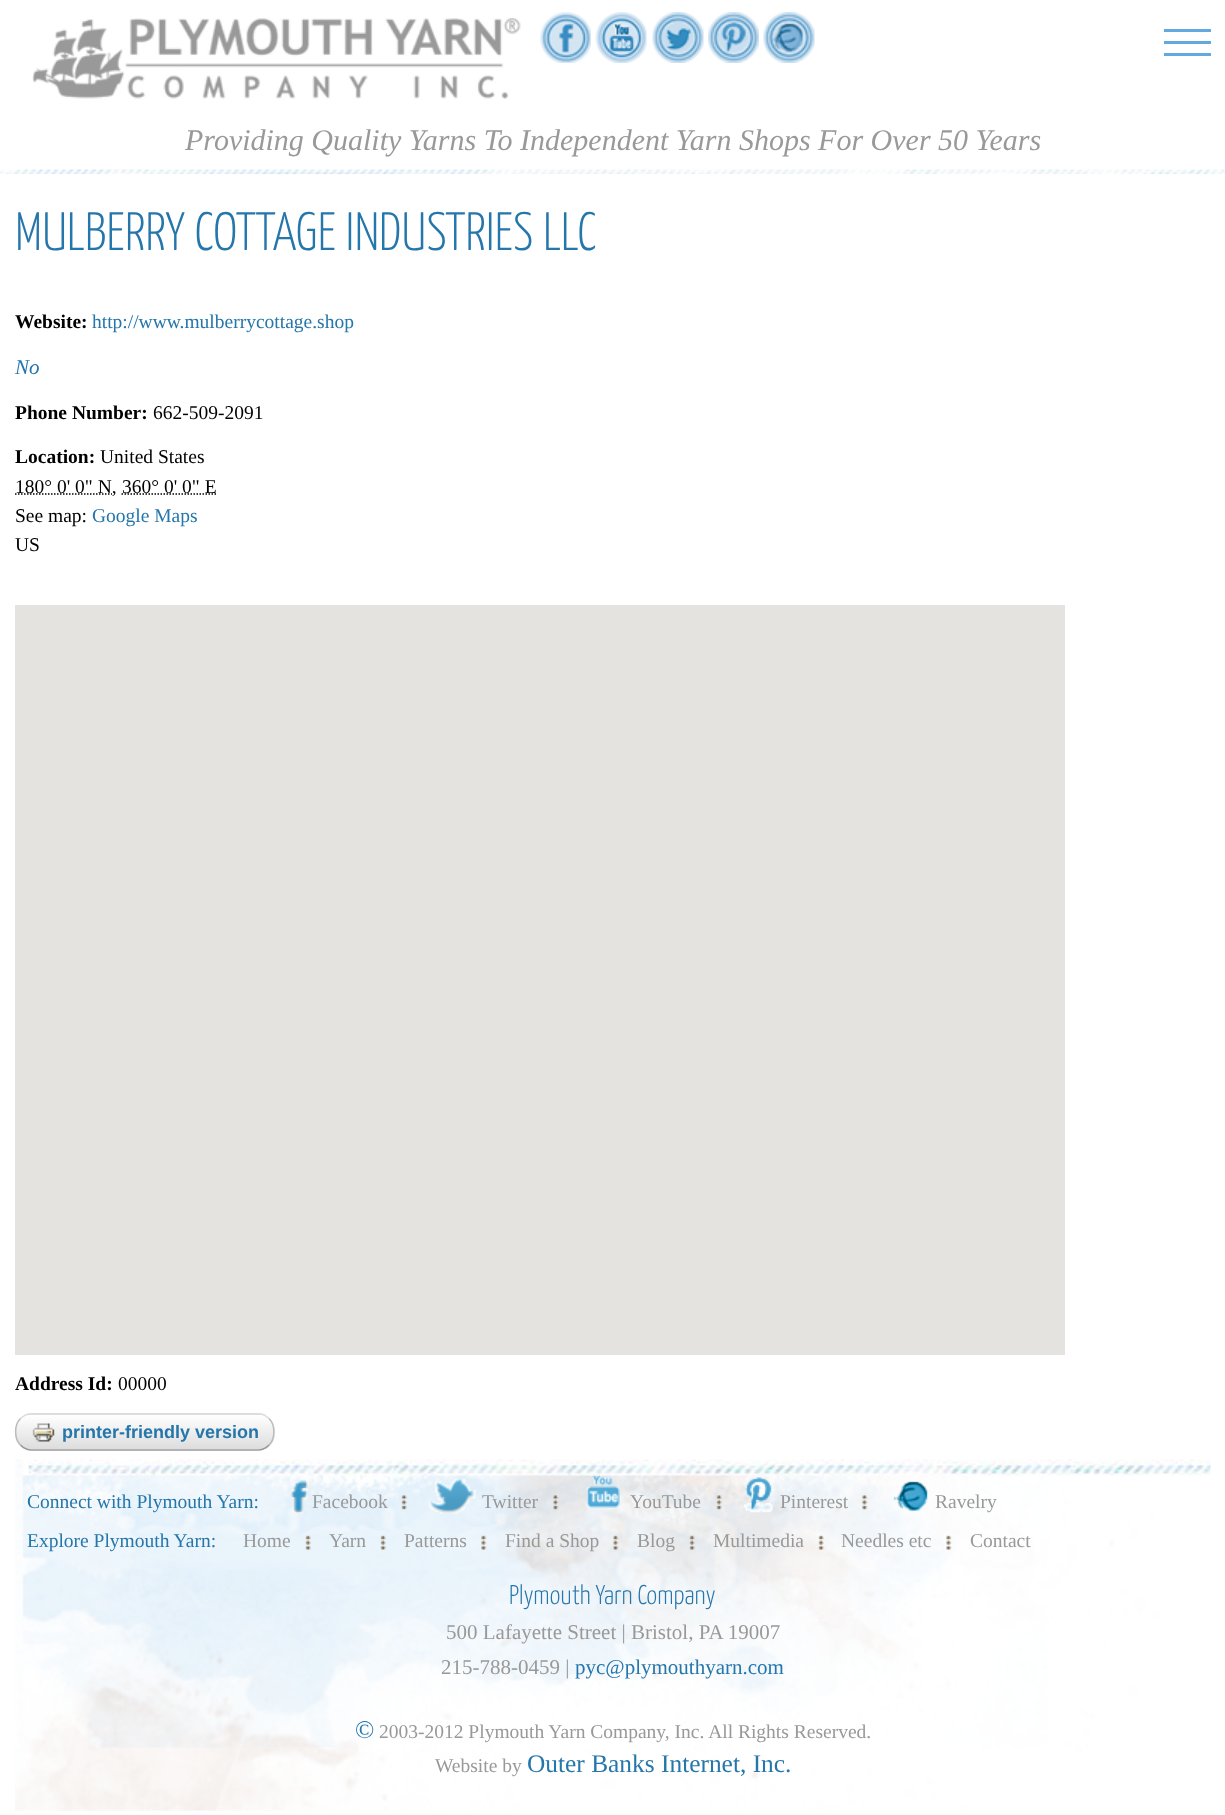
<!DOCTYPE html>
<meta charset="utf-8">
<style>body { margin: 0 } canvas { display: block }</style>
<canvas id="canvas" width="1225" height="1815"></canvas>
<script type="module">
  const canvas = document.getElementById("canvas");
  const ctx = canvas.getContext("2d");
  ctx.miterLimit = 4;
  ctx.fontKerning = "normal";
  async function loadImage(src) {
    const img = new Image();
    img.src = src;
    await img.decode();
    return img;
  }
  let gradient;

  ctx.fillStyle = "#ffffff";
  ctx.fillRect(0, 0, 1225, 1815);
  ctx.fillStyle = "#62a9df";
  ctx.fillRect(1164, 41, 47, 3);
  ctx.fillRect(1164, 29, 47, 3);
  ctx.fillRect(1164, 53, 47, 3);
  ctx.drawImage(await loadImage("img1.png"), 32, 17, 489, 82);
  ctx.drawImage(await loadImage("img2.png"), 540, 12, 51, 51);
  ctx.drawImage(await loadImage("img3.png"), 595, 12, 52, 51);
  ctx.drawImage(await loadImage("img4.png"), 652, 12, 52, 51);
  ctx.drawImage(await loadImage("img5.png"), 708, 12, 51, 51);
  ctx.drawImage(await loadImage("img6.png"), 763, 12, 52, 51);
  ctx.font = "italic 30px Liberation Serif";
  ctx.fillStyle = "#999999";
  ctx.fillText("Providing Quality Yarns To Independent Yarn Shops For Over 50 Years", 185, 150);
  ctx.drawImage(await loadImage("img7.png"), 0, 169, 1225, 5);
  ctx.font = "200 54px Yanone Kaffeesatz";
  ctx.fillStyle = "#2576ab";
  ctx.fillText("MULBERRY COTTAGE INDUSTRIES LLC", 15, 250);
  ctx.font = "bold 19.5px Liberation Serif";
  ctx.fillStyle = "#000000";
  ctx.fillText("Website:", 15, 328);
  ctx.font = "19.5px Liberation Serif";
  ctx.fillStyle = "#2576ab";
  ctx.fillText("http://www.mulberrycottage.shop", 92, 328);
  ctx.font = "italic 21px Liberation Serif";
  ctx.fillText("No", 15, 374);
  ctx.font = "bold 19.5px Liberation Serif";
  ctx.fillStyle = "#000000";
  ctx.fillText("Phone Number:", 15, 419);
  ctx.font = "19.5px Liberation Serif";
  ctx.fillText("662-509-2091", 153, 419);
  ctx.font = "bold 19.5px Liberation Serif";
  ctx.fillText("Location:", 15, 463);
  ctx.font = "19.5px Liberation Serif";
  ctx.fillText("United States", 100, 463);
  ctx.beginPath();
  ctx.moveTo(15, 494);
  ctx.lineTo(112, 494);
  ctx.strokeStyle = "#000000";
  ctx.lineWidth = 1.5;
  ctx.setLineDash([1.5, 1.5]);
  ctx.stroke();
  ctx.fillText("180° 0' 0\" N,", 15, 493);
  ctx.beginPath();
  ctx.moveTo(121.5, 494);
  ctx.lineTo(216, 494);
  ctx.stroke();
  ctx.fillText("360° 0' 0\" E", 122, 493);
  ctx.fillText("See map:", 15, 522);
  ctx.fillStyle = "#2576ab";
  ctx.fillText("Google Maps", 92, 522);
  ctx.fillStyle = "#000000";
  ctx.fillText("US", 15, 551);
  ctx.fillStyle = "#e5e3df";
  ctx.fillRect(15, 605, 1050, 750);
  ctx.font = "bold 19.5px Liberation Serif";
  ctx.fillStyle = "#000000";
  ctx.fillText("Address Id:", 15, 1390);
  ctx.font = "19.5px Liberation Serif";
  ctx.fillText("00000", 118, 1390);
  ctx.save();
  ctx.beginPath();
  ctx.roundRect(15, 1413, 260, 38, 17);
  ctx.clip();
  gradient = ctx.createLinearGradient(17, 1380, 17, 1415);
  gradient.addColorStop(0, "#ffffff");
  gradient.addColorStop(1, "#dddddd");
  ctx.fillStyle = gradient;
  ctx.fillRect(24, 1413, 242, 2);
  gradient = ctx.createLinearGradient(17, 1415, 17, 1449);
  gradient.addColorStop(0, "#ffffff");
  gradient.addColorStop(1, "#dddddd");
  ctx.fillStyle = gradient;
  ctx.fillRect(15, 1415, 260, 34);
  ctx.restore();
  ctx.beginPath();
  ctx.moveTo(20.5, 1418.5);
  ctx.bezierCurveTo(23.5, 1415.5, 27.5, 1414, 31.5, 1414);
  ctx.lineTo(258, 1414);
  ctx.bezierCurveTo(262, 1414, 266, 1415.5, 269, 1418.5);
  ctx.strokeStyle = "#dddddd";
  ctx.setLineDash([]);
  ctx.stroke();
  ctx.beginPath();
  ctx.moveTo(269, 1418.5);
  ctx.bezierCurveTo(275.5, 1425, 275.5, 1438.5, 269, 1445);
  ctx.strokeStyle = "#bbbbbb";
  ctx.stroke();
  ctx.beginPath();
  ctx.moveTo(269, 1445);
  ctx.bezierCurveTo(266, 1448, 262, 1450, 258, 1450);
  ctx.lineTo(31.5, 1450);
  ctx.bezierCurveTo(27.5, 1450, 23.5, 1448, 20.5, 1445);
  ctx.strokeStyle = "#999999";
  ctx.stroke();
  ctx.beginPath();
  ctx.moveTo(20.5, 1445);
  ctx.bezierCurveTo(14, 1438.5, 14, 1425, 20.5, 1418.5);
  ctx.strokeStyle = "#bbbbbb";
  ctx.stroke();
  ctx.drawImage(await loadImage("img8.png"), 32, 1423, 23, 19);
  ctx.font = "bold 18px Liberation Sans";
  ctx.fillStyle = "#2576ab";
  ctx.fillText("printer-friendly version", 62, 1438);
  ctx.drawImage(await loadImage("img9.png"), 15, 1459, 1196, 352);
  ctx.font = "19.5px Liberation Serif";
  ctx.fillText("Connect with Plymouth Yarn:", 27, 1508);
  ctx.drawImage(await loadImage("img10.png"), 291, 1480, 17, 34);
  ctx.fillStyle = "#999999";
  ctx.fillText("Facebook", 312, 1508);
  ctx.drawImage(await loadImage("img11.png"), 401, 1495, 6, 15);
  ctx.drawImage(await loadImage("img12.png"), 429, 1478, 47, 36);
  ctx.fillText("Twitter", 482, 1508);
  ctx.drawImage(await loadImage("img13.png"), 553, 1495, 6, 15);
  ctx.drawImage(await loadImage("img14.png"), 586, 1474, 34, 34);
  ctx.fillText("YouTube", 630, 1508);
  ctx.drawImage(await loadImage("img15.png"), 716, 1495, 6, 15);
  ctx.drawImage(await loadImage("img16.png"), 744, 1477, 29, 36);
  ctx.fillText("Pinterest", 780, 1508);
  ctx.drawImage(await loadImage("img17.png"), 862, 1495, 6, 15);
  ctx.drawImage(await loadImage("img18.png"), 893, 1481, 35, 31);
  ctx.fillText("Ravelry", 935, 1508);
  ctx.fillStyle = "#2576ab";
  ctx.fillText("Explore Plymouth Yarn:", 27, 1547);
  ctx.fillStyle = "#999999";
  ctx.fillText("Home", 243, 1547);
  ctx.drawImage(await loadImage("img19.png"), 305, 1535, 6, 15);
  ctx.fillText("Yarn", 329, 1547);
  ctx.drawImage(await loadImage("img20.png"), 380, 1535, 6, 15);
  ctx.fillText("Patterns", 404, 1547);
  ctx.drawImage(await loadImage("img21.png"), 481, 1535, 6, 15);
  ctx.fillText("Find a Shop", 505, 1547);
  ctx.drawImage(await loadImage("img22.png"), 613, 1535, 6, 15);
  ctx.fillText("Blog", 637, 1547);
  ctx.drawImage(await loadImage("img23.png"), 689, 1535, 6, 15);
  ctx.fillText("Multimedia", 713, 1547);
  ctx.drawImage(await loadImage("img24.png"), 818, 1535, 6, 15);
  ctx.fillText("Needles etc", 841, 1547);
  ctx.drawImage(await loadImage("img25.png"), 946, 1535, 6, 15);
  ctx.fillText("Contact", 970, 1547);
  ctx.font = "200 27px Yanone Kaffeesatz";
  ctx.fillStyle = "#2576ab";
  ctx.fillText("Plymouth Yarn Company", 509, 1604);
  ctx.font = "21px Liberation Serif";
  ctx.fillStyle = "#999999";
  ctx.fillText("500 Lafayette Street | Bristol, PA 19007", 446, 1639);
  ctx.fillText("215-788-0459 |", 441, 1674);
  ctx.fillStyle = "#2576ab";
  ctx.fillText("pyc@plymouthyarn.com", 575, 1674);
  ctx.font = "25.4px Liberation Serif";
  ctx.fillText("©", 355, 1738);
  ctx.font = "19.5px Liberation Serif";
  ctx.fillStyle = "#999999";
  ctx.fillText("2003-2012 Plymouth Yarn Company, Inc. All Rights Reserved.", 379, 1738);
  ctx.fillText("Website by", 435, 1772);
  ctx.font = "25.4px Liberation Serif";
  ctx.fillStyle = "#2576ab";
  ctx.fillText("Outer Banks Internet, Inc.", 527, 1772);
</script>
